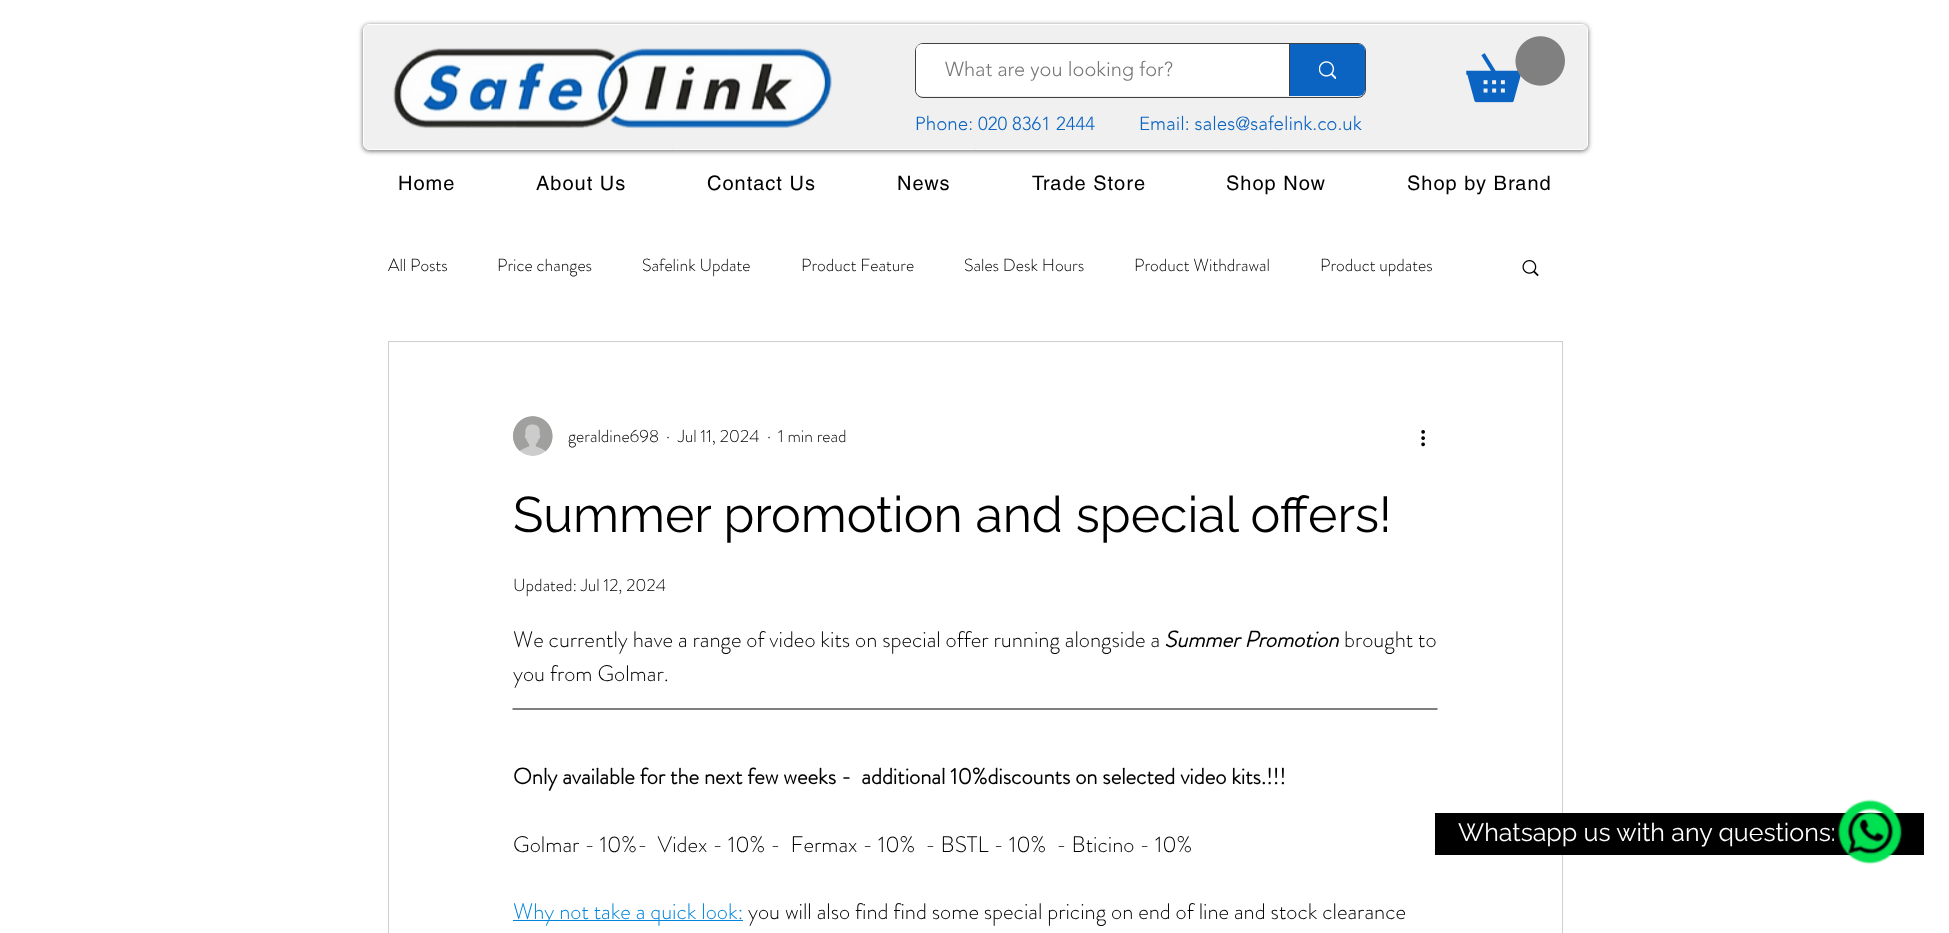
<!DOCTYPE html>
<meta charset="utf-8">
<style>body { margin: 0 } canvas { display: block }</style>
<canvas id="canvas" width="1949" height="933"></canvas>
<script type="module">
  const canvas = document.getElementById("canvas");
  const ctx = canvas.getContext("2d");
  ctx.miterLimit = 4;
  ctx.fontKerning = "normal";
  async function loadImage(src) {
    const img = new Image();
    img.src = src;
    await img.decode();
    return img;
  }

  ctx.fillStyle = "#ffffff";
  ctx.fillRect(0, 0, 1949, 933);
  ctx.fillStyle = "rgba(0, 0, 0, 0.6)";
  ctx.filter = "blur(2.5px)";
  ctx.beginPath();
  ctx.roundRect(363, 25, 1225, 126, 6);
  ctx.fill();
  ctx.filter = "none";
  ctx.fillStyle = "#f0f0f0";
  ctx.beginPath();
  ctx.roundRect(363.5, 24.5, 1224, 125, 5.5);
  ctx.fill();
  ctx.strokeStyle = "#ffffff";
  ctx.stroke();
  ctx.drawImage(await loadImage("img1.png"), 393, 48, 439, 81);
  ctx.beginPath();
  ctx.roundRect(915.5, 43.5, 450, 54, 7.5);
  ctx.strokeStyle = "#404040";
  ctx.stroke();
  ctx.fillStyle = "#ffffff";
  ctx.beginPath();
  ctx.roundRect(916, 44, 449, 52, 6);
  ctx.fill();
  ctx.font = "300 20px 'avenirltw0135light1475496'";
  ctx.fillStyle = "#787878";
  ctx.fillText("What are you looking for?", 945, 76);
  ctx.fillStyle = "#0b64c1";
  ctx.beginPath();
  ctx.roundRect(1289, 44, 76, 52, [0, 6, 6, 0]);
  ctx.fill();
  ctx.fillStyle = "#404040";
  ctx.fillRect(1289, 44, 1, 52);
  ctx.drawImage(await loadImage("img2.png"), 1319, 61, 17, 18);
  ctx.drawImage(await loadImage("img3.png"), 1466, 36, 99, 67);
  ctx.font = "300 18.75px 'avenirltw0135light1475496'";
  ctx.fillStyle = "#0b64c1";
  ctx.fillText("Phone: 020 8361 2444", 915, 130);
  ctx.fillText("Email: sales@safelink.co.uk", 1139, 130);
  ctx.letterSpacing = "1px";
  ctx.font = "20px helvetica";
  ctx.fillStyle = "#000000";
  ctx.fillText("Home", 398, 190);
  ctx.fillText("About Us", 536, 190);
  ctx.fillText("Contact Us", 707, 190);
  ctx.fillText("News", 897, 190);
  ctx.fillText("Trade Store", 1032, 190);
  ctx.fillText("Shop Now", 1226, 190);
  ctx.fillText("Shop by Brand", 1407, 190);
  ctx.letterSpacing = "0px";
  ctx.font = "300 17.5px 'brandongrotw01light'";
  ctx.fillText("All Posts", 388, 271);
  ctx.fillText("Price changes", 497, 271);
  ctx.fillText("Safelink Update", 642, 271);
  ctx.fillText("Product Feature", 801, 271);
  ctx.fillText("Sales Desk Hours", 964, 271);
  ctx.fillText("Product Withdrawal", 1134, 271);
  ctx.fillText("Product updates", 1320, 271);
  ctx.drawImage(await loadImage("img4.png"), 1522, 260, 17, 17);
  ctx.strokeStyle = "#cfcfcf";
  ctx.strokeRect(388.5, 341.5, 1174, 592);
  ctx.drawImage(await loadImage("img5.png"), 513, 416, 40, 40);
  ctx.fillText("geraldine698", 568, 442);
  ctx.fillText("·", 666, 442);
  ctx.fillText("Jul 11, 2024", 678, 442);
  ctx.fillText("·", 767, 442);
  ctx.fillText("1 min read", 778, 442);
  ctx.drawImage(await loadImage("img6.png"), 1421, 430, 4, 17);
  ctx.font = "50px Raleway";
  ctx.fillText("Summer promotion and special offers!", 513, 532);
  ctx.font = "300 17.5px 'brandongrotw01light'";
  ctx.fillText("Updated: Jul 12, 2024", 513, 591);
  ctx.font = "300 22.5px 'brandongrotw01light'";
  ctx.fillText("We currently have a range of video kits on special offer running alongside a", 513, 647);
  ctx.font = "italic bold 22.5px 'brandongrotw01light'";
  ctx.fillText("Summer Promotion", 1164, 647);
  ctx.font = "300 22.5px 'brandongrotw01light'";
  ctx.fillText("brought to", 1344, 647);
  ctx.fillText("you from Golmar.", 513, 681);
  ctx.beginPath();
  ctx.moveTo(512.5, 709);
  ctx.lineTo(1437.5, 709);
  ctx.strokeStyle = "#000000";
  ctx.lineWidth = 1.2;
  ctx.stroke();
  ctx.font = "bold 22.5px 'brandongrotw01light'";
  ctx.fillText("Only available for the next few weeks -  additional 10%discounts on selected video kits.!!!", 513, 784);
  ctx.font = "300 22.5px 'brandongrotw01light'";
  ctx.fillText("Golmar - 10%-  Videx - 10% -  Fermax - 10%  - BSTL - 10%  - Bticino - 10%", 513, 852);
  ctx.fillStyle = "#0084db";
  ctx.fillRect(513, 920, 230, 1);
  ctx.fillText("Why not take a quick look:", 513, 919);
  ctx.fillStyle = "#000000";
  ctx.fillText("you will also find find some special pricing on end of line and stock clearance", 748, 919);
  ctx.fillRect(1435, 813, 489, 42);
  ctx.drawImage(await loadImage("img7.png"), 1838, 799, 64, 66);
  ctx.font = "25px Raleway";
  ctx.fillStyle = "#ffffff";
  ctx.fillText("Whatsapp us with any questions:", 1458, 841);
</script>
